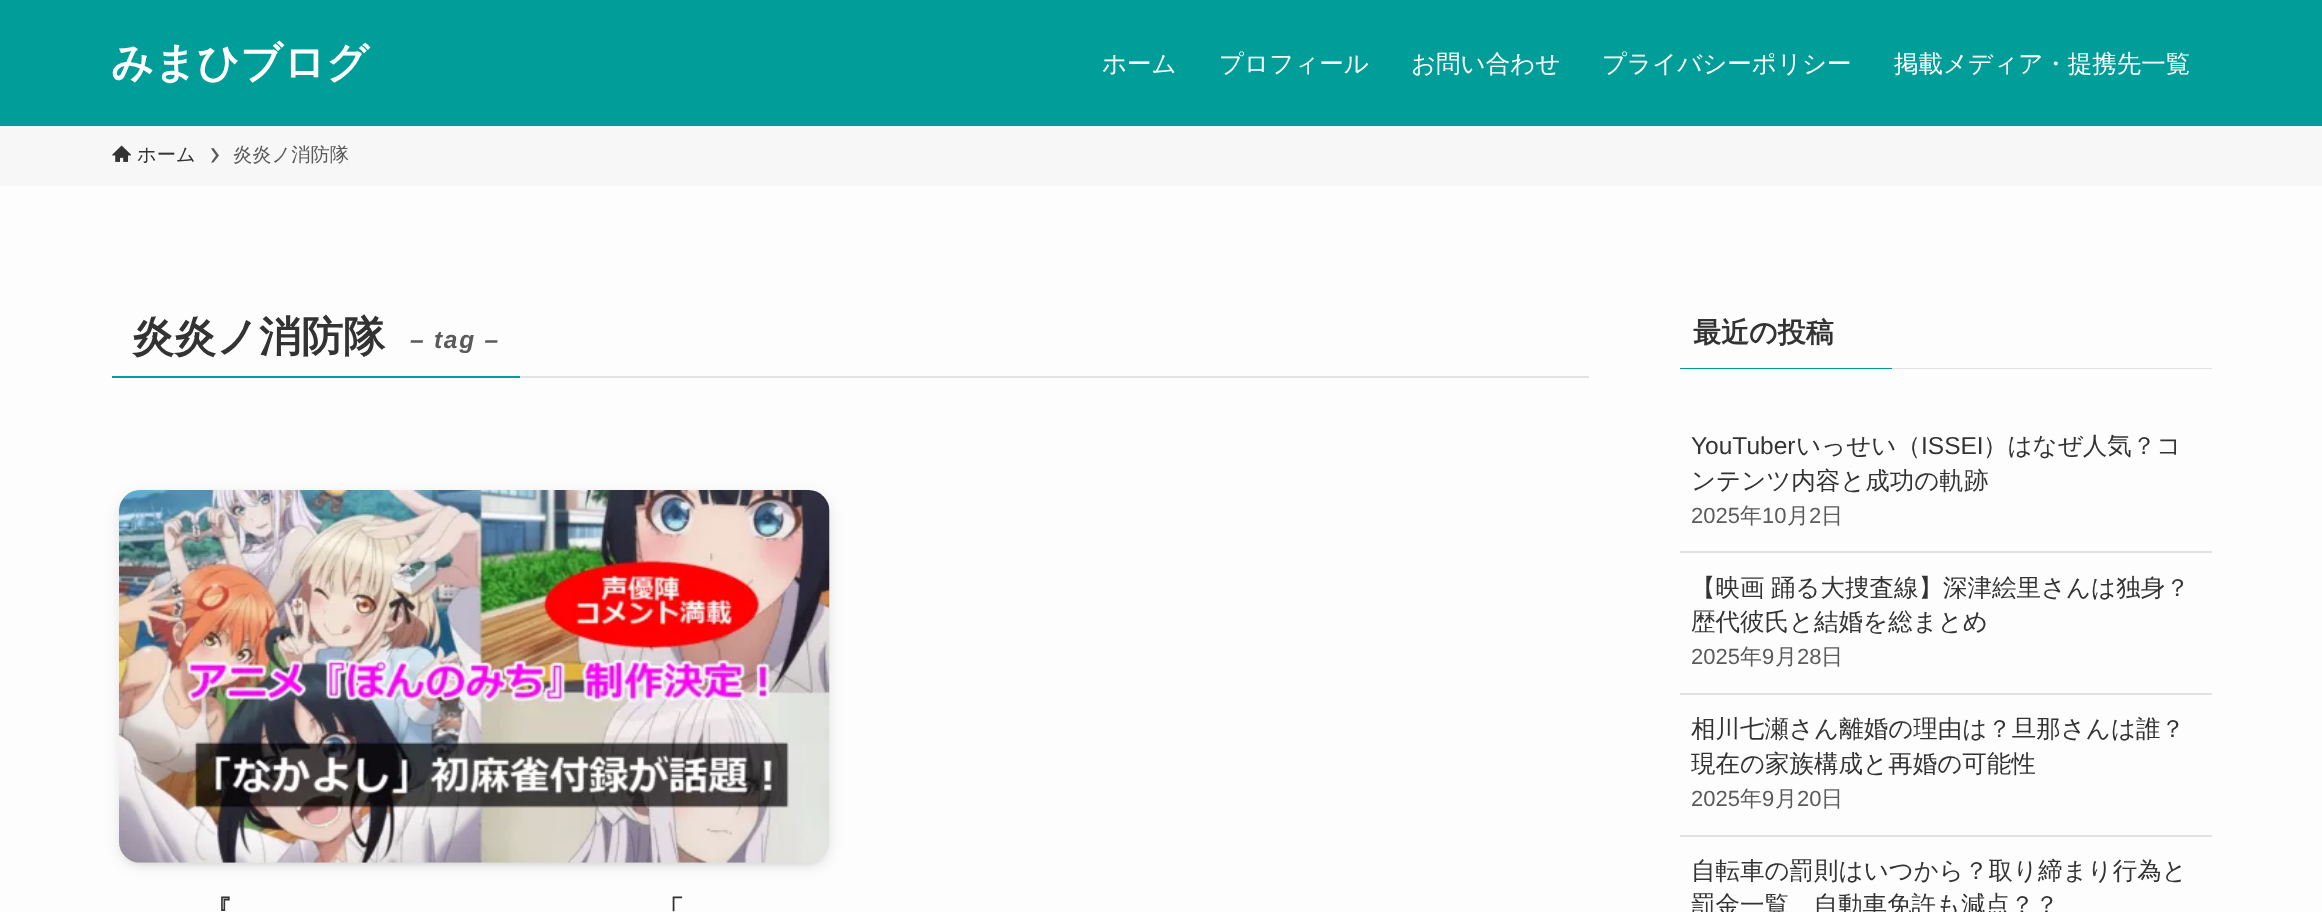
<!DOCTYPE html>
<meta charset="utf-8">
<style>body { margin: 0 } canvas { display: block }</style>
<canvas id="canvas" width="2322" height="912"></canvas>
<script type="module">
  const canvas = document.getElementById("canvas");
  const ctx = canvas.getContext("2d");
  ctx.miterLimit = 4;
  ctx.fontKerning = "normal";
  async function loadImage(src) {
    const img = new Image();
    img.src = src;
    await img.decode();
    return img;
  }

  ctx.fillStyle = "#fdfdfd";
  ctx.fillRect(0, 0, 2322, 912);
  ctx.fillStyle = "#019e99";
  ctx.fillRect(0, 0, 2322, 126);
  ctx.font = "bold 42px WenQuanYi Zen Hei";
  ctx.fillStyle = "#ffffff";
  ctx.fillText("みまひブログ", 111, 77);
  ctx.font = "500 24.5px WenQuanYi Zen Hei";
  ctx.fillText("ホーム", 1102, 72);
  ctx.fillText("プロフィール", 1219, 72);
  ctx.fillText("お問い合わせ", 1411, 72);
  ctx.fillText("プライバシーポリシー", 1602, 72);
  ctx.fillText("掲載メディア・提携先一覧", 1894, 72);
  ctx.fillStyle = "#f7f7f7";
  ctx.fillRect(0, 126, 2322, 60);
  ctx.drawImage(await loadImage("img1.png"), 112, 145, 19, 17);
  ctx.font = "500 19.25px WenQuanYi Zen Hei";
  ctx.fillStyle = "#333333";
  ctx.fillText("ホーム", 137, 161);
  ctx.fillStyle = "#5a5a5a";
  ctx.beginPath();
  ctx.moveTo(213.5, 148);
  ctx.lineTo(211, 148.5);
  ctx.lineTo(216, 155.5);
  ctx.lineTo(211, 162.5);
  ctx.lineTo(213.5, 162.5);
  ctx.lineTo(219, 155.5);
  ctx.closePath();
  ctx.fill();
  ctx.fillText("炎炎ノ消防隊", 233, 161);
  ctx.fillStyle = "#e2e2e2";
  ctx.fillRect(520, 376, 1069, 2);
  ctx.fillStyle = "#019e99";
  ctx.fillRect(112, 376, 408, 2);
  ctx.font = "bold 42px WenQuanYi Zen Hei";
  ctx.fillStyle = "#333333";
  ctx.fillText("炎炎ノ消防隊", 132, 351);
  ctx.letterSpacing = "1.75px";
  ctx.font = "italic bold 24.5px Liberation Sans";
  ctx.fillStyle = "#5a5a5a";
  ctx.fillText("– tag –", 410, 348);
  ctx.fillStyle = "rgba(0, 0, 0, 0.1)";
  ctx.filter = "blur(3.5px)";
  ctx.beginPath();
  ctx.roundRect(126, 504, 697, 359, 14);
  ctx.fill();
  ctx.filter = "none";
  ctx.filter = "blur(7px)";
  ctx.beginPath();
  ctx.roundRect(119, 494, 711, 372, 21);
  ctx.fill();
  ctx.filter = "none";
  ctx.drawImage(await loadImage("img2.png"), 119, 490, 711, 373);
  ctx.letterSpacing = "0px";
  ctx.font = "bold 28px WenQuanYi Zen Hei";
  ctx.fillStyle = "#333333";
  ctx.fillText("『", 204, 920);
  ctx.fillText("「", 656, 920);
  ctx.fillText("最近の投稿", 1693, 342);
  ctx.fillStyle = "#019e99";
  ctx.fillRect(1680, 368, 212, 1);
  ctx.fillStyle = "#e2e2e2";
  ctx.fillRect(1892, 368, 320, 1);
  ctx.fillRect(1680, 551, 532, 2);
  ctx.font = "24.5px Liberation Sans";
  ctx.fillStyle = "#333333";
  ctx.fillText("YouTuber", 1691, 454);
  ctx.font = "500 24.5px WenQuanYi Zen Hei";
  ctx.fillText("いっせい（", 1796, 454);
  ctx.font = "24.5px Liberation Sans";
  ctx.fillText("ISSEI", 1921, 454);
  ctx.font = "500 24.5px WenQuanYi Zen Hei";
  ctx.fillText("）はなぜ人気？コ", 1983, 454);
  ctx.fillText("ンテンツ内容と成功の軌跡", 1691, 489);
  ctx.font = "22px Liberation Sans";
  ctx.fillStyle = "#5a5a5a";
  ctx.fillText("2025", 1691, 523);
  ctx.font = "500 22px WenQuanYi Zen Hei";
  ctx.fillText("年", 1740, 523);
  ctx.font = "22px Liberation Sans";
  ctx.fillText("10", 1762, 523);
  ctx.font = "500 22px WenQuanYi Zen Hei";
  ctx.fillText("月", 1787, 523);
  ctx.font = "22px Liberation Sans";
  ctx.fillText("2", 1809, 523);
  ctx.font = "500 22px WenQuanYi Zen Hei";
  ctx.fillText("日", 1821, 523);
  ctx.fillStyle = "#e2e2e2";
  ctx.fillRect(1680, 693, 532, 2);
  ctx.wordSpacing = "-1px";
  ctx.font = "500 24.5px WenQuanYi Zen Hei";
  ctx.fillStyle = "#333333";
  ctx.fillText("【映画 踊る大捜査線】深津絵里さんは独身？", 1691, 596);
  ctx.wordSpacing = "0px";
  ctx.fillText("歴代彼氏と結婚を総まとめ", 1691, 630);
  ctx.font = "22px Liberation Sans";
  ctx.fillStyle = "#5a5a5a";
  ctx.fillText("2025", 1691, 664);
  ctx.font = "500 22px WenQuanYi Zen Hei";
  ctx.fillText("年", 1740, 664);
  ctx.font = "22px Liberation Sans";
  ctx.fillText("9", 1762, 664);
  ctx.font = "500 22px WenQuanYi Zen Hei";
  ctx.fillText("月", 1775, 664);
  ctx.font = "22px Liberation Sans";
  ctx.fillText("28", 1797, 664);
  ctx.font = "500 22px WenQuanYi Zen Hei";
  ctx.fillText("日", 1821, 664);
  ctx.fillStyle = "#e2e2e2";
  ctx.fillRect(1680, 835, 532, 2);
  ctx.font = "500 24.5px WenQuanYi Zen Hei";
  ctx.fillStyle = "#333333";
  ctx.fillText("相川七瀬さん離婚の理由は？旦那さんは誰？", 1691, 737);
  ctx.fillText("現在の家族構成と再婚の可能性", 1691, 772);
  ctx.font = "22px Liberation Sans";
  ctx.fillStyle = "#5a5a5a";
  ctx.fillText("2025", 1691, 806);
  ctx.font = "500 22px WenQuanYi Zen Hei";
  ctx.fillText("年", 1740, 806);
  ctx.font = "22px Liberation Sans";
  ctx.fillText("9", 1762, 806);
  ctx.font = "500 22px WenQuanYi Zen Hei";
  ctx.fillText("月", 1775, 806);
  ctx.font = "22px Liberation Sans";
  ctx.fillText("20", 1797, 806);
  ctx.font = "500 22px WenQuanYi Zen Hei";
  ctx.fillText("日", 1821, 806);
  ctx.font = "500 24.5px WenQuanYi Zen Hei";
  ctx.fillStyle = "#333333";
  ctx.fillText("自転車の罰則はいつから？取り締まり行為と", 1691, 879);
  ctx.fillText("罰金一覧　自動車免許も減点？？", 1691, 913);
</script>
